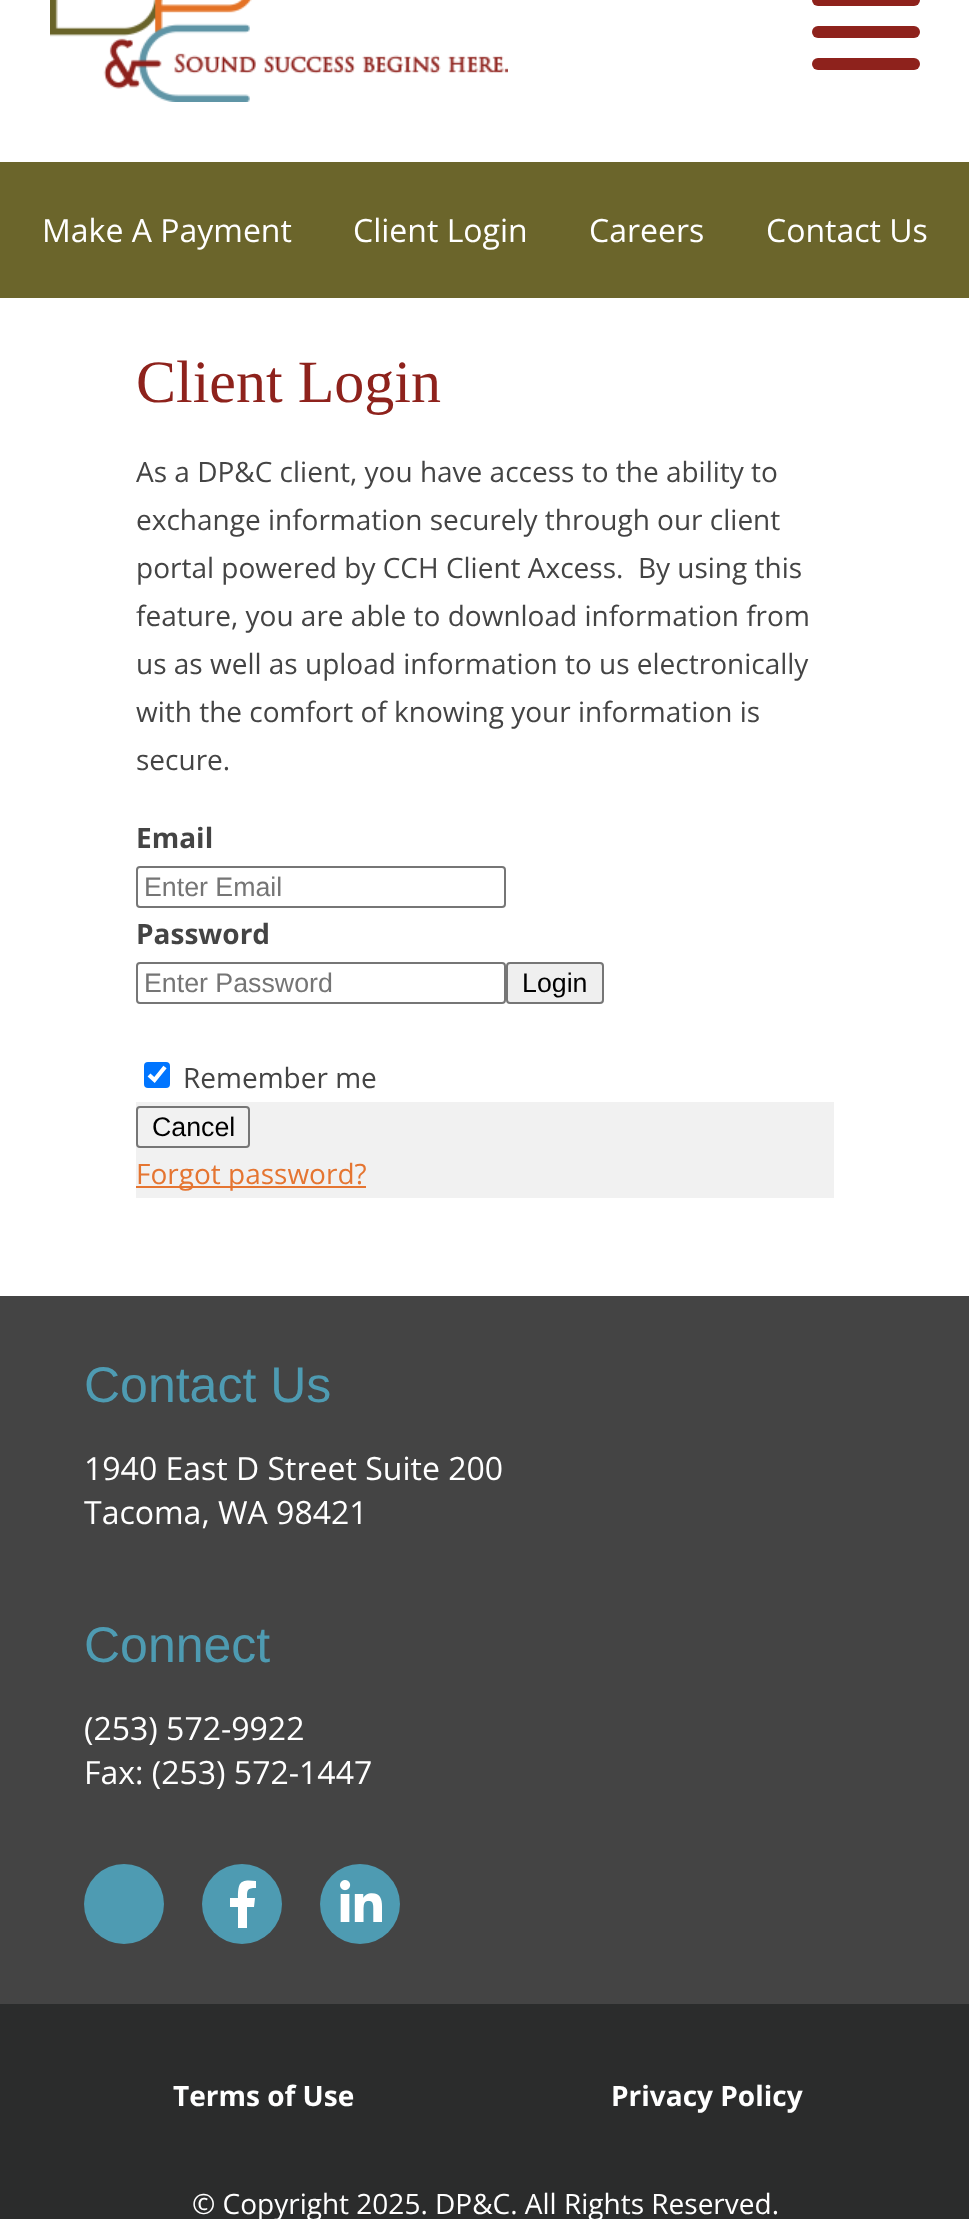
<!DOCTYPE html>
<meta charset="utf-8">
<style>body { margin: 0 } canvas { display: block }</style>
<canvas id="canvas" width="969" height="2219"></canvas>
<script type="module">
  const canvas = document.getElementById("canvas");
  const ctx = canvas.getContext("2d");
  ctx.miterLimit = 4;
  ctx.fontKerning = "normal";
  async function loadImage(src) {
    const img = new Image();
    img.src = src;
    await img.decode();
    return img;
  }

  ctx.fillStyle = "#ffffff";
  ctx.fillRect(0, 0, 969, 2219);
  ctx.drawImage(await loadImage("img1.png"), 50, 0, 458, 102);
  ctx.fillStyle = "#8e221c";
  ctx.beginPath();
  ctx.roundRect(812, 26, 108, 12, 6);
  ctx.fill();
  ctx.beginPath();
  ctx.roundRect(812, -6, 108, 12, 6);
  ctx.fill();
  ctx.beginPath();
  ctx.roundRect(812, 58, 108, 12, 6);
  ctx.fill();
  ctx.fillStyle = "#6b652b";
  ctx.fillRect(0, 162, 969, 136);
  ctx.font = "32px Open Sans";
  ctx.fillStyle = "#ffffff";
  ctx.fillText("Make A Payment", 42, 242);
  ctx.fillText("Client Login", 353, 242);
  ctx.fillText("Careers", 589, 242);
  ctx.fillText("Contact Us", 766, 242);
  ctx.font = "60px Liberation Serif";
  ctx.fillStyle = "#8e221c";
  ctx.fillText("Client Login", 136, 402);
  ctx.font = "28px Open Sans";
  ctx.fillStyle = "#444444";
  ctx.fillText("As a DP&C client, you have access to the ability to", 136, 482);
  ctx.fillText("exchange information securely through our client", 136, 530);
  ctx.fillText("portal powered by CCH Client Axcess.  By using this", 136, 578);
  ctx.fillText("feature, you are able to download information from", 136, 626);
  ctx.fillText("us as well as upload information to us electronically", 136, 674);
  ctx.fillText("with the comfort of knowing your information is", 136, 722);
  ctx.fillText("secure.", 136, 770);
  ctx.font = "bold 28px Open Sans";
  ctx.fillText("Email", 136, 848);
  ctx.beginPath();
  ctx.roundRect(137, 867, 368, 40, 3);
  ctx.strokeStyle = "#767676";
  ctx.lineWidth = 2;
  ctx.stroke();
  ctx.font = "26.75px Liberation Sans";
  ctx.fillStyle = "#757575";
  ctx.fillText("Enter Email", 144, 896);
  ctx.font = "bold 28px Open Sans";
  ctx.fillStyle = "#444444";
  ctx.fillText("Password", 136, 944);
  ctx.beginPath();
  ctx.roundRect(137, 963, 368, 40, 3);
  ctx.stroke();
  ctx.font = "26.75px Liberation Sans";
  ctx.fillStyle = "#757575";
  ctx.fillText("Enter Password", 144, 992);
  ctx.fillStyle = "#efefef";
  ctx.beginPath();
  ctx.roundRect(507, 963, 96, 40, 3);
  ctx.fill();
  ctx.stroke();
  ctx.fillStyle = "#000000";
  ctx.fillText("Login", 522, 992);
  ctx.fillStyle = "#0075ff";
  ctx.beginPath();
  ctx.roundRect(144, 1062, 26, 26, 4);
  ctx.fill();
  ctx.beginPath();
  ctx.moveTo(149, 1075);
  ctx.lineTo(154.5, 1080);
  ctx.lineTo(165, 1067);
  ctx.strokeStyle = "#ffffff";
  ctx.lineWidth = 4.2;
  ctx.stroke();
  ctx.font = "28px Open Sans";
  ctx.fillStyle = "#444444";
  ctx.fillText("Remember me", 183, 1088);
  ctx.fillStyle = "#f1f1f1";
  ctx.fillRect(136, 1102, 698, 96);
  ctx.beginPath();
  ctx.roundRect(137, 1107, 112, 40, 3);
  ctx.strokeStyle = "#767676";
  ctx.lineWidth = 2;
  ctx.stroke();
  ctx.font = "26.75px Liberation Sans";
  ctx.fillStyle = "#000000";
  ctx.fillText("Cancel", 152, 1136);
  ctx.fillStyle = "#e57531";
  ctx.fillRect(136, 1186, 230, 2);
  ctx.font = "28px Open Sans";
  ctx.fillText("Forgot password?", 136, 1184);
  ctx.fillStyle = "#444444";
  ctx.fillRect(0, 1296, 969, 708);
  ctx.font = "50px Liberation Sans";
  ctx.fillStyle = "#4e9bb2";
  ctx.fillText("Contact Us", 84, 1402);
  ctx.font = "32px Open Sans";
  ctx.fillStyle = "#ffffff";
  ctx.fillText("1940 East D Street Suite 200", 84, 1480);
  ctx.fillText("Tacoma, WA 98421", 84, 1524);
  ctx.font = "50px Liberation Sans";
  ctx.fillStyle = "#4e9bb2";
  ctx.fillText("Connect", 84, 1662);
  ctx.font = "32px Open Sans";
  ctx.fillStyle = "#ffffff";
  ctx.fillText("(253) 572-9922", 84, 1740);
  ctx.fillText("Fax: (253) 572-1447", 84, 1784);
  ctx.fillStyle = "#4e9bb2";
  ctx.beginPath();
  ctx.arc(124, 1904, 40, 0, Math.PI * 2);
  ctx.fill();
  ctx.beginPath();
  ctx.arc(242, 1904, 40, 0, Math.PI * 2);
  ctx.fill();
  ctx.fillStyle = "#ffffff";
  ctx.beginPath();
  ctx.moveTo(254, 1907);
  ctx.lineTo(247, 1907);
  ctx.lineTo(247, 1928);
  ctx.lineTo(238, 1928);
  ctx.lineTo(238, 1907);
  ctx.lineTo(230, 1907);
  ctx.lineTo(230, 1898);
  ctx.lineTo(238, 1898);
  ctx.bezierCurveTo(238, 1882, 240, 1879, 256, 1881);
  ctx.lineTo(256, 1888);
  ctx.bezierCurveTo(247, 1888, 247, 1890, 247, 1898);
  ctx.lineTo(255, 1898);
  ctx.closePath();
  ctx.fill();
  ctx.fillStyle = "#4e9bb2";
  ctx.beginPath();
  ctx.arc(360, 1904, 40, 0, Math.PI * 2);
  ctx.fill();
  ctx.drawImage(await loadImage("img2.png"), 340, 1880, 42, 42);
  ctx.fillStyle = "#2b2c2c";
  ctx.fillRect(0, 2004, 969, 215);
  ctx.font = "bold 28px Open Sans";
  ctx.fillStyle = "#ffffff";
  ctx.fillText("Terms of Use", 173, 2106);
  ctx.fillText("Privacy Policy", 611, 2106);
  ctx.font = "28px Open Sans";
  ctx.fillText("© Copyright 2025. DP&C. All Rights Reserved.", 192, 2214);
</script>
